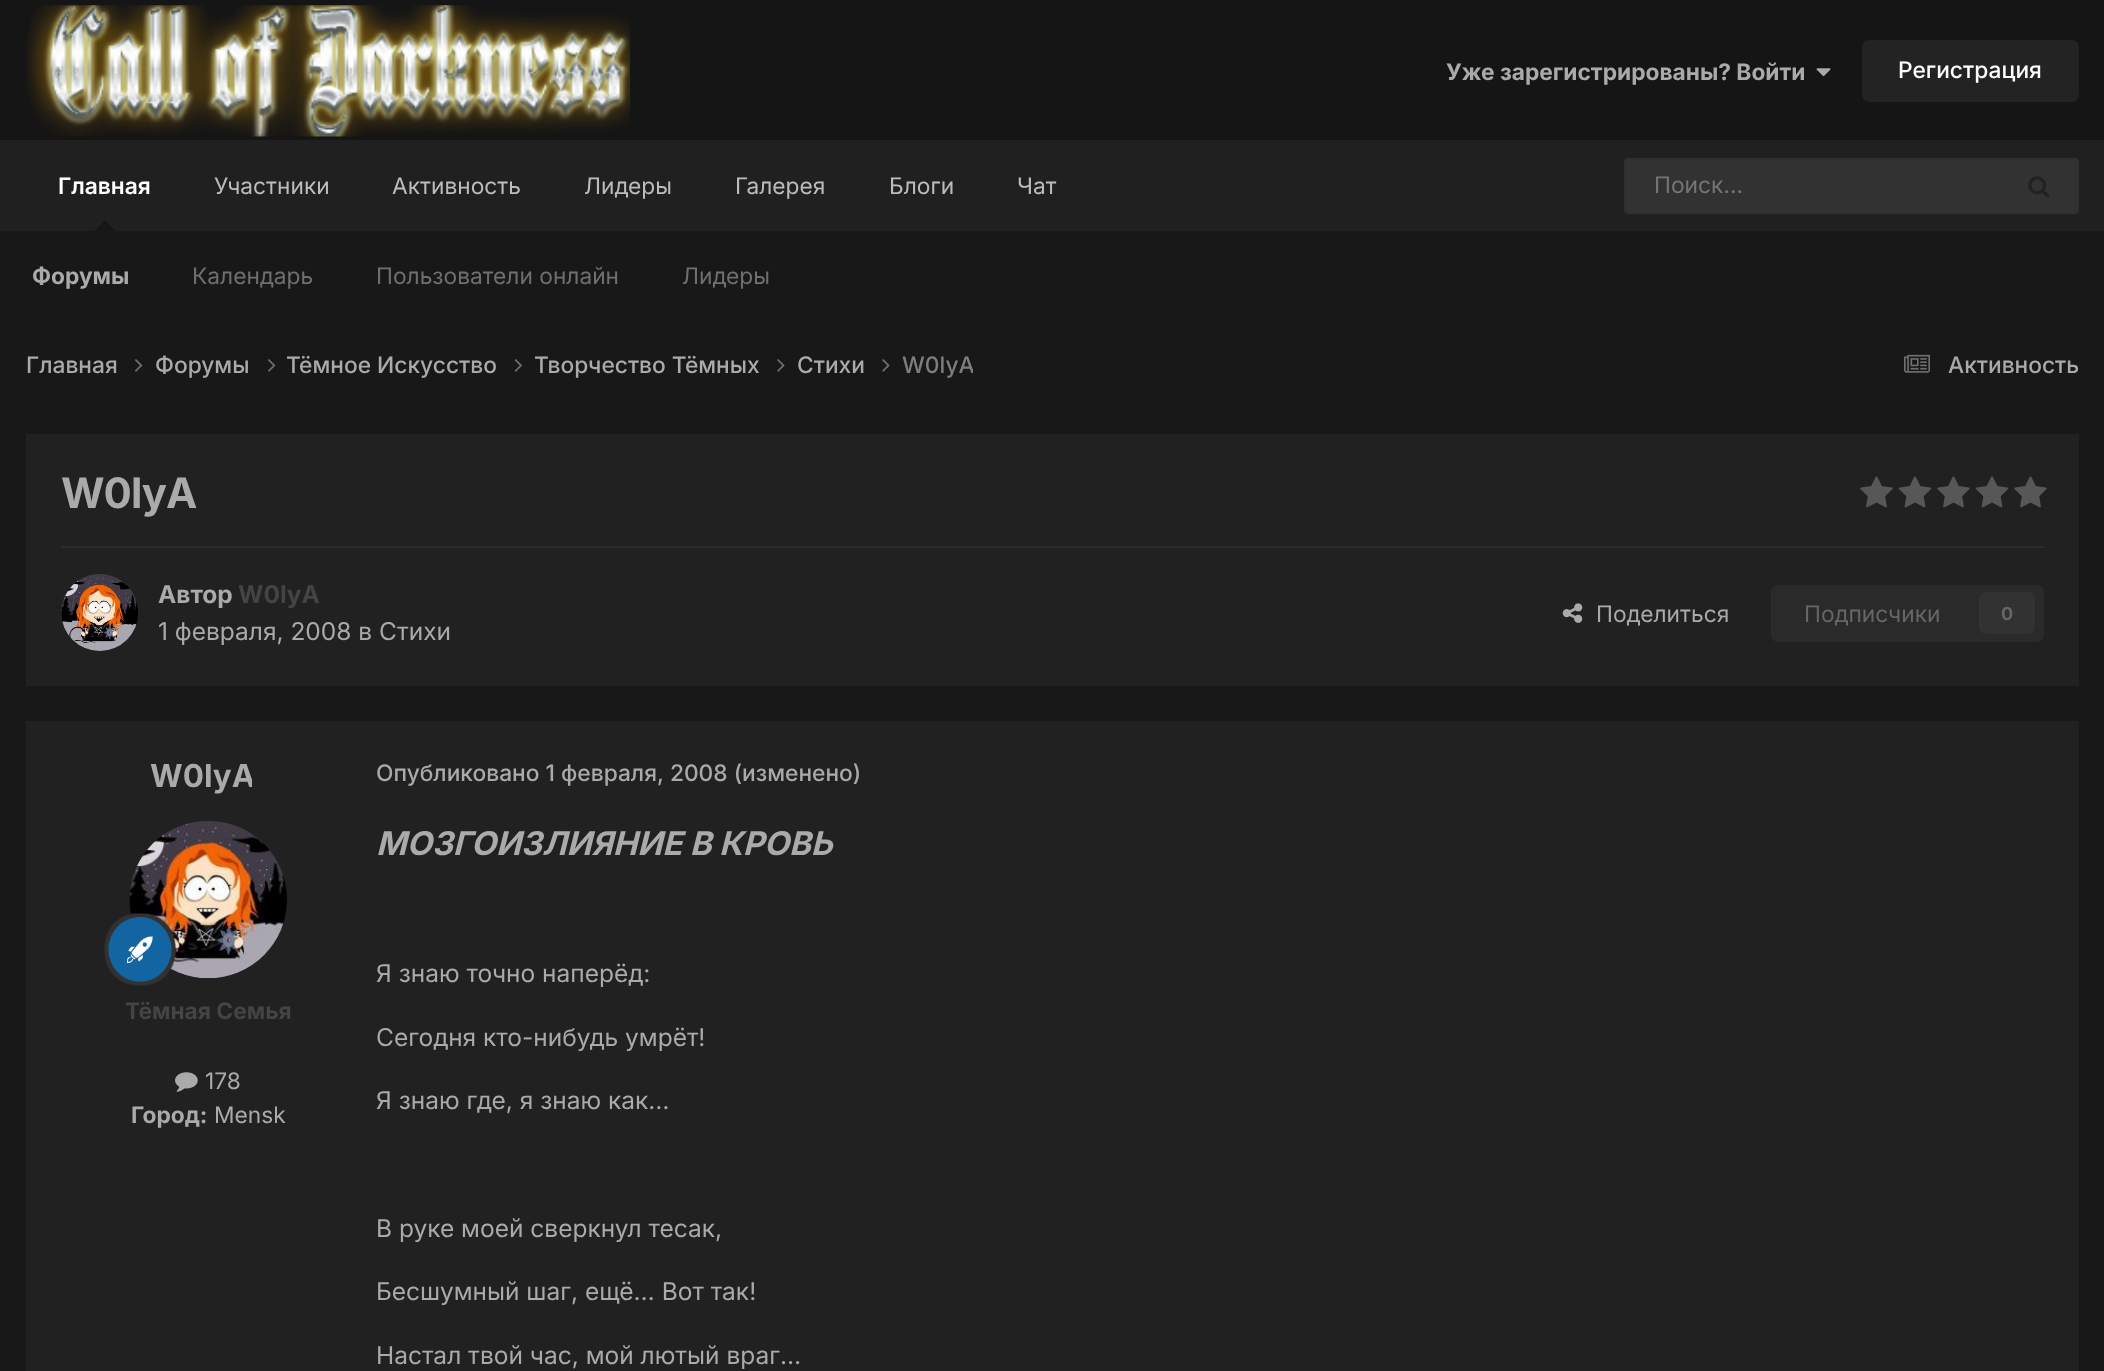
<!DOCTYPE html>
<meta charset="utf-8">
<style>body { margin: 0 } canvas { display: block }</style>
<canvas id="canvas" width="2104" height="1371"></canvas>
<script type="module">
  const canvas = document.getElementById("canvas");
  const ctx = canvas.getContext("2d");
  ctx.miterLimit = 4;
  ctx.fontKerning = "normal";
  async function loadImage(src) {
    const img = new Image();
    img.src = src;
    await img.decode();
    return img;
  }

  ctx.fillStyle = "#181818";
  ctx.fillRect(0, 0, 2104, 1371);
  ctx.fillStyle = "#151515";
  ctx.fillRect(0, 0, 2104, 140);
  ctx.drawImage(await loadImage("img1.png"), 26, 5, 604, 132);
  ctx.font = "bold 22.75px Inter";
  ctx.fillStyle = "#aaaaaa";
  ctx.fillText("Уже зарегистрированы? Войти", 1446, 80);
  ctx.drawImage(await loadImage("img2.png"), 1816, 68, 15, 9);
  ctx.fillStyle = "#232323";
  ctx.beginPath();
  ctx.roundRect(1862, 40, 217, 62, 7);
  ctx.fill();
  ctx.font = "500 22.75px Inter";
  ctx.fillStyle = "#ffffff";
  ctx.fillText("Регистрация", 1898, 78);
  ctx.fillStyle = "#202020";
  ctx.fillRect(0, 140, 2104, 91);
  ctx.font = "600 22.75px Inter";
  ctx.fillStyle = "#ffffff";
  ctx.fillText("Главная", 58, 194);
  ctx.fillStyle = "#161616";
  ctx.beginPath();
  ctx.moveTo(115.5, 231);
  ctx.lineTo(94.5, 231);
  ctx.lineTo(105, 220.5);
  ctx.closePath();
  ctx.fill();
  ctx.font = "bold 22.75px Inter";
  ctx.fillStyle = "#aaaaaa";
  ctx.fillText("Форумы", 32, 284);
  ctx.font = "22.75px Inter";
  ctx.fillStyle = "#6f6f6f";
  ctx.fillText("Календарь", 192, 284);
  ctx.fillText("Пользователи онлайн", 376, 284);
  ctx.fillText("Лидеры", 682, 284);
  ctx.fillStyle = "#bcbcbc";
  ctx.fillText("Участники", 214, 194);
  ctx.fillText("Активность", 392, 194);
  ctx.fillText("Лидеры", 584, 194);
  ctx.fillText("Галерея", 735, 194);
  ctx.fillText("Блоги", 889, 194);
  ctx.fillText("Чат", 1017, 194);
  ctx.fillStyle = "#323232";
  ctx.beginPath();
  ctx.roundRect(1625, 159, 453, 54, 3);
  ctx.fill();
  ctx.strokeStyle = "#303030";
  ctx.lineWidth = 2;
  ctx.stroke();
  ctx.fillStyle = "#757575";
  ctx.fillText("Поиск...", 1654, 193);
  ctx.drawImage(await loadImage("img3.png"), 2028, 176, 22, 22);
  ctx.font = "500 22.75px Inter";
  ctx.fillStyle = "#aaaaaa";
  ctx.fillText("Главная", 26, 373);
  ctx.drawImage(await loadImage("img4.png"), 135, 359, 8, 13);
  ctx.fillText("Форумы", 155, 373);
  ctx.drawImage(await loadImage("img4.png"), 268, 359, 8, 13);
  ctx.fillText("Тёмное Искусство", 286, 373);
  ctx.drawImage(await loadImage("img5.png"), 514, 359, 8, 13);
  ctx.fillText("Творчество Тёмных", 534, 373);
  ctx.drawImage(await loadImage("img6.png"), 777, 359, 8, 13);
  ctx.fillText("Стихи", 797, 373);
  ctx.drawImage(await loadImage("img6.png"), 882, 359, 8, 13);
  ctx.save();
  ctx.beginPath();
  ctx.rect(901, 348, 72, 34);
  ctx.clip();
  ctx.fillStyle = "#7e7e7e";
  ctx.fillText("W0lyA", 902, 373);
  ctx.restore();
  ctx.drawImage(await loadImage("img7.png"), 1904, 354, 26, 19);
  ctx.fillText("Активность", 1948, 373);
  ctx.fillStyle = "#212121";
  ctx.fillRect(26, 434, 2053, 252);
  ctx.letterSpacing = "-1px";
  ctx.font = "bold 42px Inter";
  ctx.fillStyle = "#aaaaaa";
  ctx.fillText("W0lyA", 61, 508);
  ctx.drawImage(await loadImage("img8.png"), 1860, 476, 33, 32);
  ctx.drawImage(await loadImage("img9.png"), 1898, 476, 34, 32);
  ctx.drawImage(await loadImage("img8.png"), 1937, 476, 33, 32);
  ctx.drawImage(await loadImage("img9.png"), 1975, 476, 34, 32);
  ctx.drawImage(await loadImage("img8.png"), 2014, 476, 33, 32);
  ctx.fillStyle = "#2c2c2c";
  ctx.fillRect(61, 546, 1983, 2);
  ctx.fillStyle = "#323232";
  ctx.beginPath();
  ctx.arc(99.5, 612.5, 38.5, 0, Math.PI * 2);
  ctx.fill();
  ctx.drawImage(await loadImage("img10.png"), 61, 574, 77, 77);
  ctx.letterSpacing = "0px";
  ctx.font = "bold 24.5px Inter";
  ctx.fillStyle = "#aaaaaa";
  ctx.fillText("Автор", 158, 603);
  ctx.fillStyle = "#444444";
  ctx.fillText("W0lyA", 238, 603);
  ctx.font = "24.5px Inter";
  ctx.fillStyle = "#aaaaaa";
  ctx.fillText("1 февраля, 2008 в Стихи", 158, 640);
  ctx.drawImage(await loadImage("img11.png"), 1562, 603, 21, 20);
  ctx.font = "22.75px Inter";
  ctx.fillText("Поделиться", 1596, 622);
  ctx.fillStyle = "#2a2a2a";
  ctx.beginPath();
  ctx.roundRect(1771, 585, 273, 57, 7);
  ctx.fill();
  ctx.fillStyle = "#666666";
  ctx.fillText("Подписчики", 1804, 622);
  ctx.fillStyle = "#323232";
  ctx.beginPath();
  ctx.roundRect(1979, 592, 56, 42, 7);
  ctx.fill();
  ctx.font = "bold 18px Inter";
  ctx.fillStyle = "#666666";
  ctx.fillText("0", 2001, 620);
  ctx.fillStyle = "#212121";
  ctx.fillRect(26, 721, 2053, 650);
  ctx.save();
  ctx.beginPath();
  ctx.rect(151, 756, 101, 39);
  ctx.clip();
  ctx.font = "bold 31.5px Inter";
  ctx.fillStyle = "#aaaaaa";
  ctx.fillText("W0lyA", 150, 787);
  ctx.restore();
  ctx.drawImage(await loadImage("img12.png"), 129, 821, 158, 158);
  ctx.drawImage(await loadImage("img13.png"), 104, 913, 72, 73);
  ctx.font = "bold 22.75px Inter";
  ctx.fillStyle = "#444444";
  ctx.fillText("Тёмная Семья", 125, 1019);
  ctx.drawImage(await loadImage("img14.png"), 175, 1072, 23, 20);
  ctx.font = "22.75px Inter";
  ctx.fillStyle = "#aaaaaa";
  ctx.fillText("178", 205, 1089);
  ctx.font = "bold 22.75px Inter";
  ctx.fillText("Город:", 131, 1123);
  ctx.font = "22.75px Inter";
  ctx.fillText("Mensk", 214, 1123);
  ctx.font = "500 22.75px Inter";
  ctx.fillText("Опубликовано 1 февраля, 2008 (изменено)", 376, 781);
  ctx.font = "italic bold 32.7px Inter";
  ctx.fillText("МОЗГОИЗЛИЯНИЕ В КРОВЬ", 376, 855);
  ctx.font = "24.5px Inter";
  ctx.fillText("Я знаю точно наперёд:", 376, 982);
  ctx.fillText("Сегодня кто-нибудь умрёт!", 376, 1046);
  ctx.fillText("Я знаю где, я знаю как…", 376, 1109);
  ctx.fillText("В руке моей сверкнул тесак,", 376, 1237);
  ctx.fillText("Бесшумный шаг, ещё… Вот так!", 376, 1300);
  ctx.fillText("Настал твой час, мой лютый враг…", 376, 1364);
</script>
